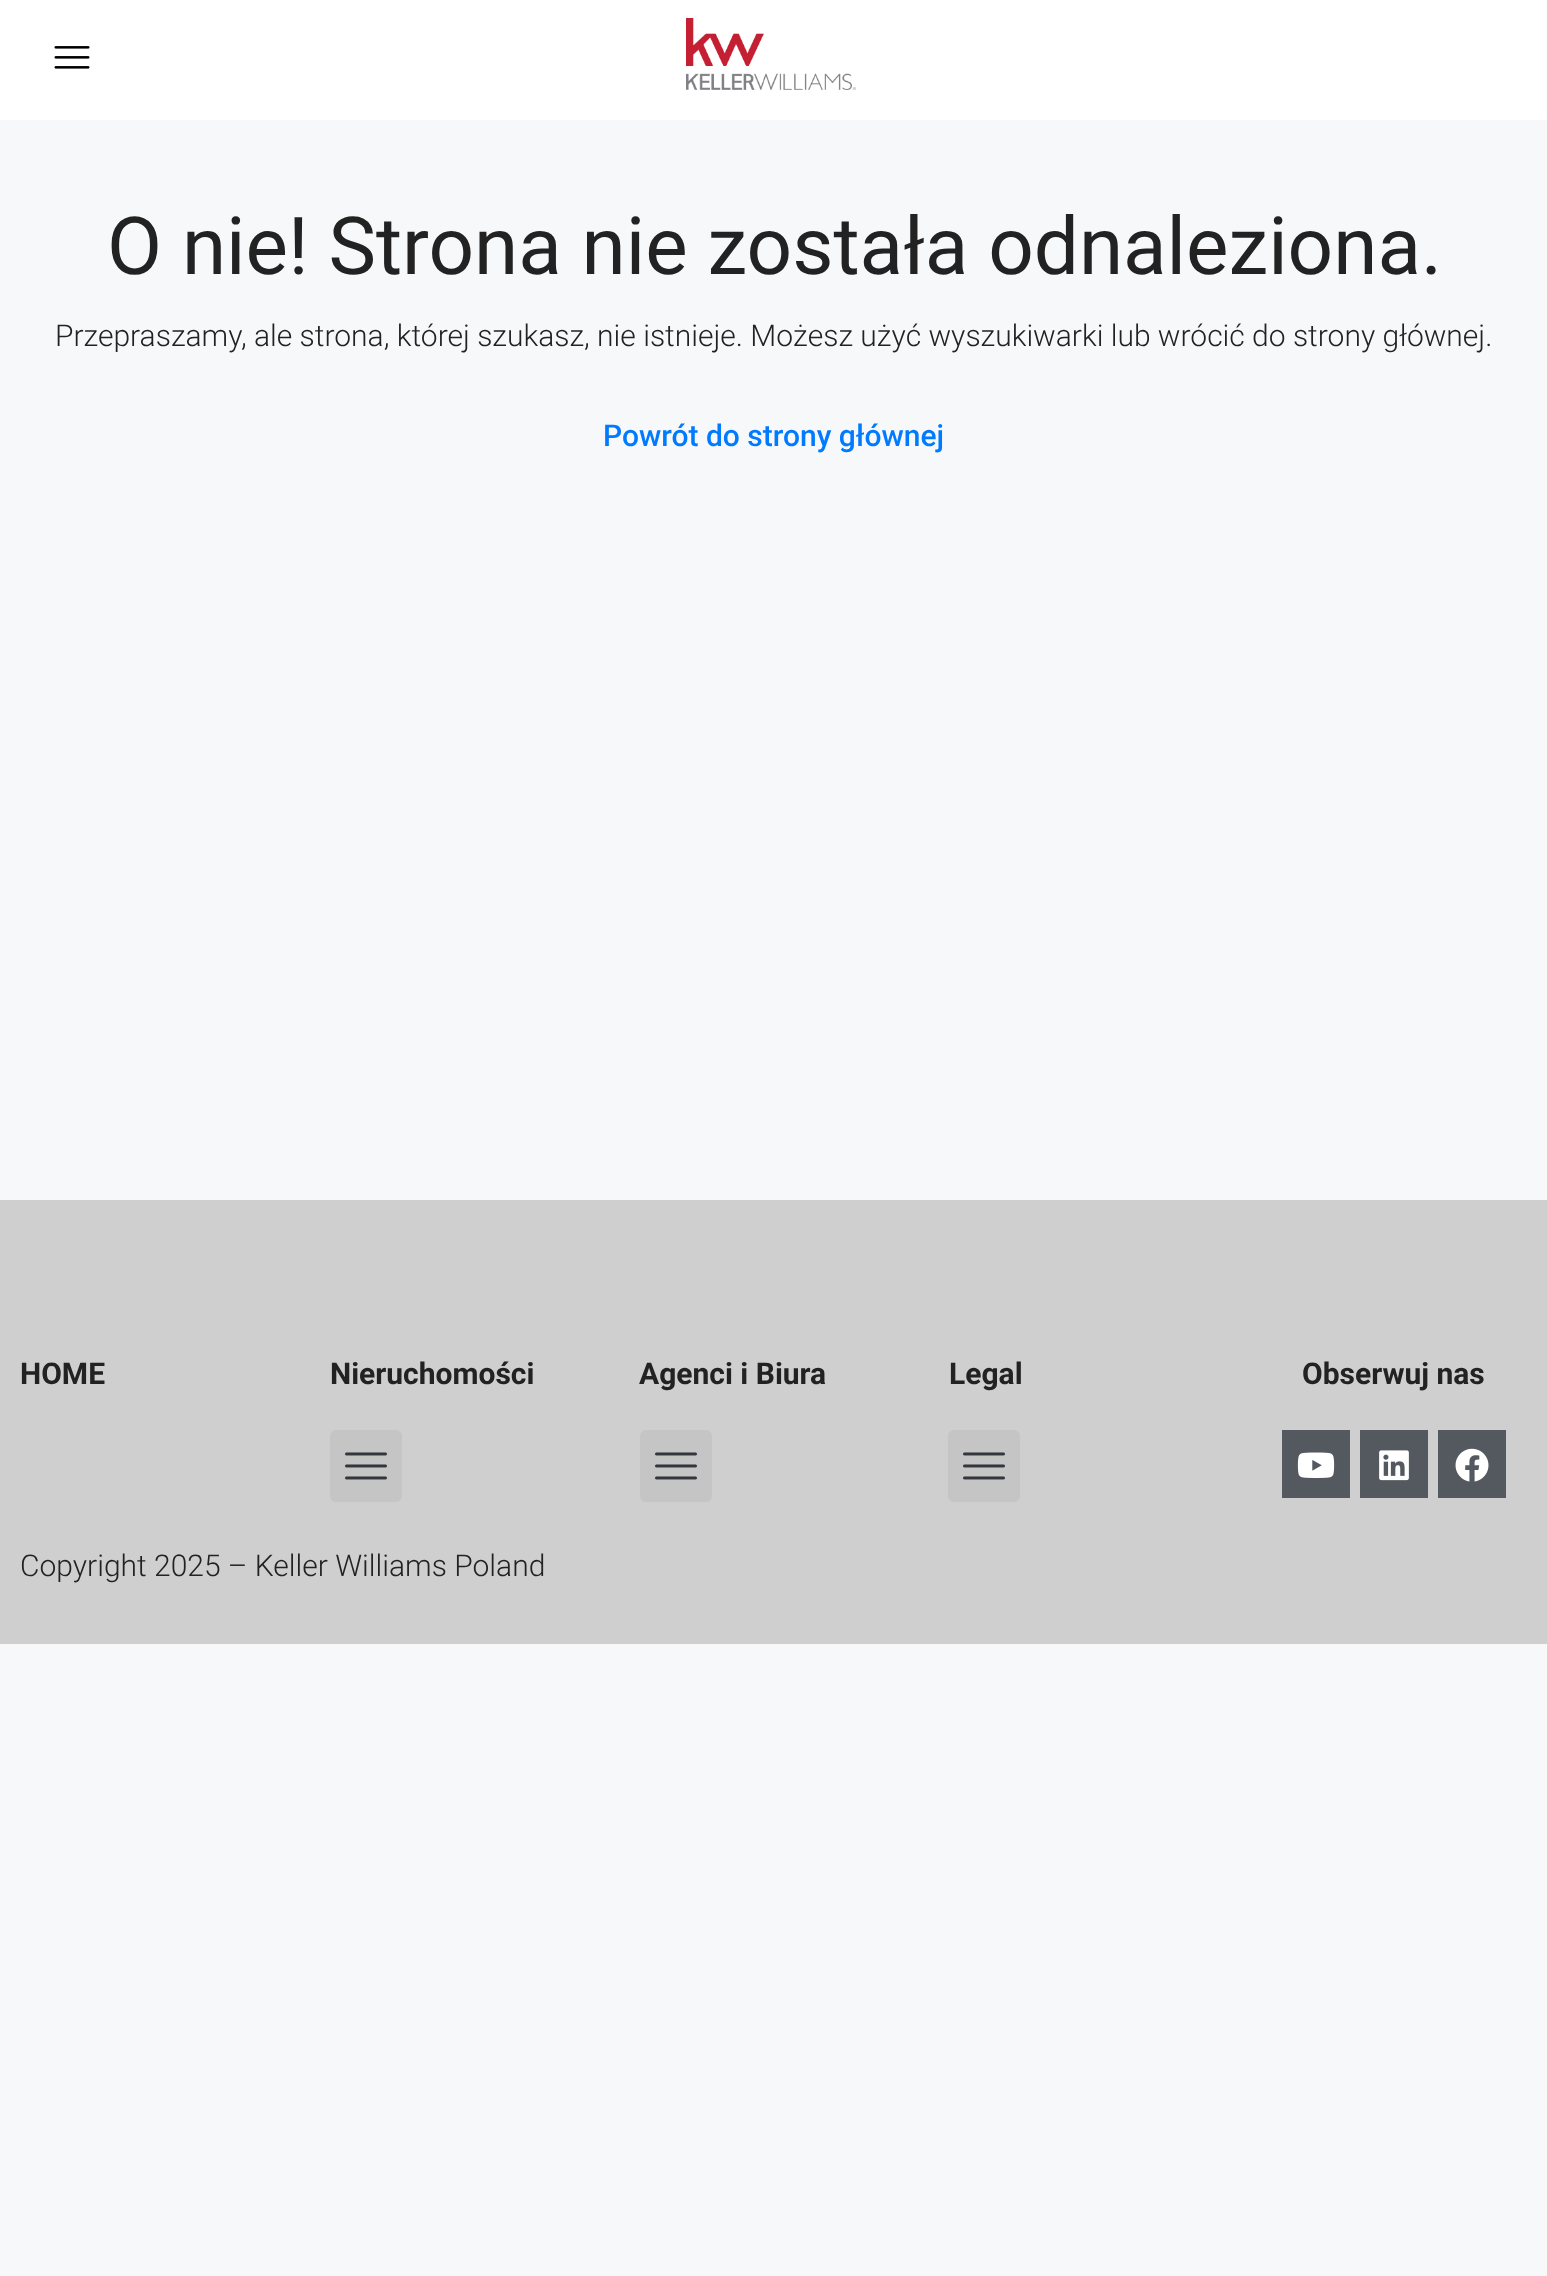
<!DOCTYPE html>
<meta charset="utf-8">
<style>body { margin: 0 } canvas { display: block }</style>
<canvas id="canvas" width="1547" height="2276"></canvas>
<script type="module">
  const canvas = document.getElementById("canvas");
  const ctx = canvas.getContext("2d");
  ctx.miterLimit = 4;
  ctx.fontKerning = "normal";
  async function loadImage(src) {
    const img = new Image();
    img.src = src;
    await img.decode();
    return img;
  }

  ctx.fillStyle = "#f7f8f9";
  ctx.fillRect(0, 0, 1547, 2276);
  ctx.fillStyle = "#ffffff";
  ctx.fillRect(0, 0, 1547, 120);
  ctx.drawImage(await loadImage("img1.png"), 54, 46, 36, 23);
  ctx.drawImage(await loadImage("img2.png"), 686, 18, 170, 72);
  ctx.font = "80px Roboto";
  ctx.fillStyle = "#222222";
  ctx.fillText("O nie! Strona nie została odnaleziona.", 107, 274);
  ctx.font = "300 30px Roboto";
  ctx.fillText("Przepraszamy, ale strona, której szukasz, nie istnieje. Możesz użyć wyszukiwarki lub wrócić do strony głównej.", 55, 346);
  ctx.font = "500 30px Roboto";
  ctx.fillStyle = "#007bff";
  ctx.fillText("Powrót do strony głównej", 603, 446);
  ctx.fillStyle = "#cfcfcf";
  ctx.fillRect(0, 1200, 1547, 444);
  ctx.font = "bold 30px Roboto";
  ctx.fillStyle = "#222222";
  ctx.fillText("HOME", 20, 1384);
  ctx.fillText("Nieruchomości", 330, 1384);
  ctx.fillStyle = "#c5c5c5";
  ctx.beginPath();
  ctx.roundRect(330, 1430, 72, 72, 6);
  ctx.fill();
  ctx.drawImage(await loadImage("img3.png"), 345, 1452, 42, 28);
  ctx.fillStyle = "#222222";
  ctx.fillText("Agenci i Biura", 639, 1384);
  ctx.fillStyle = "#c5c5c5";
  ctx.beginPath();
  ctx.roundRect(640, 1430, 72, 72, 6);
  ctx.fill();
  ctx.drawImage(await loadImage("img3.png"), 655, 1452, 42, 28);
  ctx.fillStyle = "#222222";
  ctx.fillText("Legal", 949, 1384);
  ctx.fillStyle = "#c5c5c5";
  ctx.beginPath();
  ctx.roundRect(948, 1430, 72, 72, 6);
  ctx.fill();
  ctx.drawImage(await loadImage("img3.png"), 963, 1452, 42, 28);
  ctx.fillStyle = "#222222";
  ctx.fillText("Obserwuj nas", 1302, 1384);
  ctx.fillStyle = "#54595f";
  ctx.fillRect(1282, 1430, 68, 68);
  ctx.drawImage(await loadImage("img4.png"), 1297, 1452, 38, 26);
  ctx.fillRect(1360, 1430, 68, 68);
  ctx.drawImage(await loadImage("img5.png"), 1379, 1450, 30, 31);
  ctx.fillRect(1438, 1430, 68, 68);
  ctx.drawImage(await loadImage("img6.png"), 1455, 1448, 34, 34);
  ctx.font = "300 30px Roboto";
  ctx.fillStyle = "#222222";
  ctx.fillText("Copyright 2025 – Keller Williams Poland", 20, 1576);
</script>
